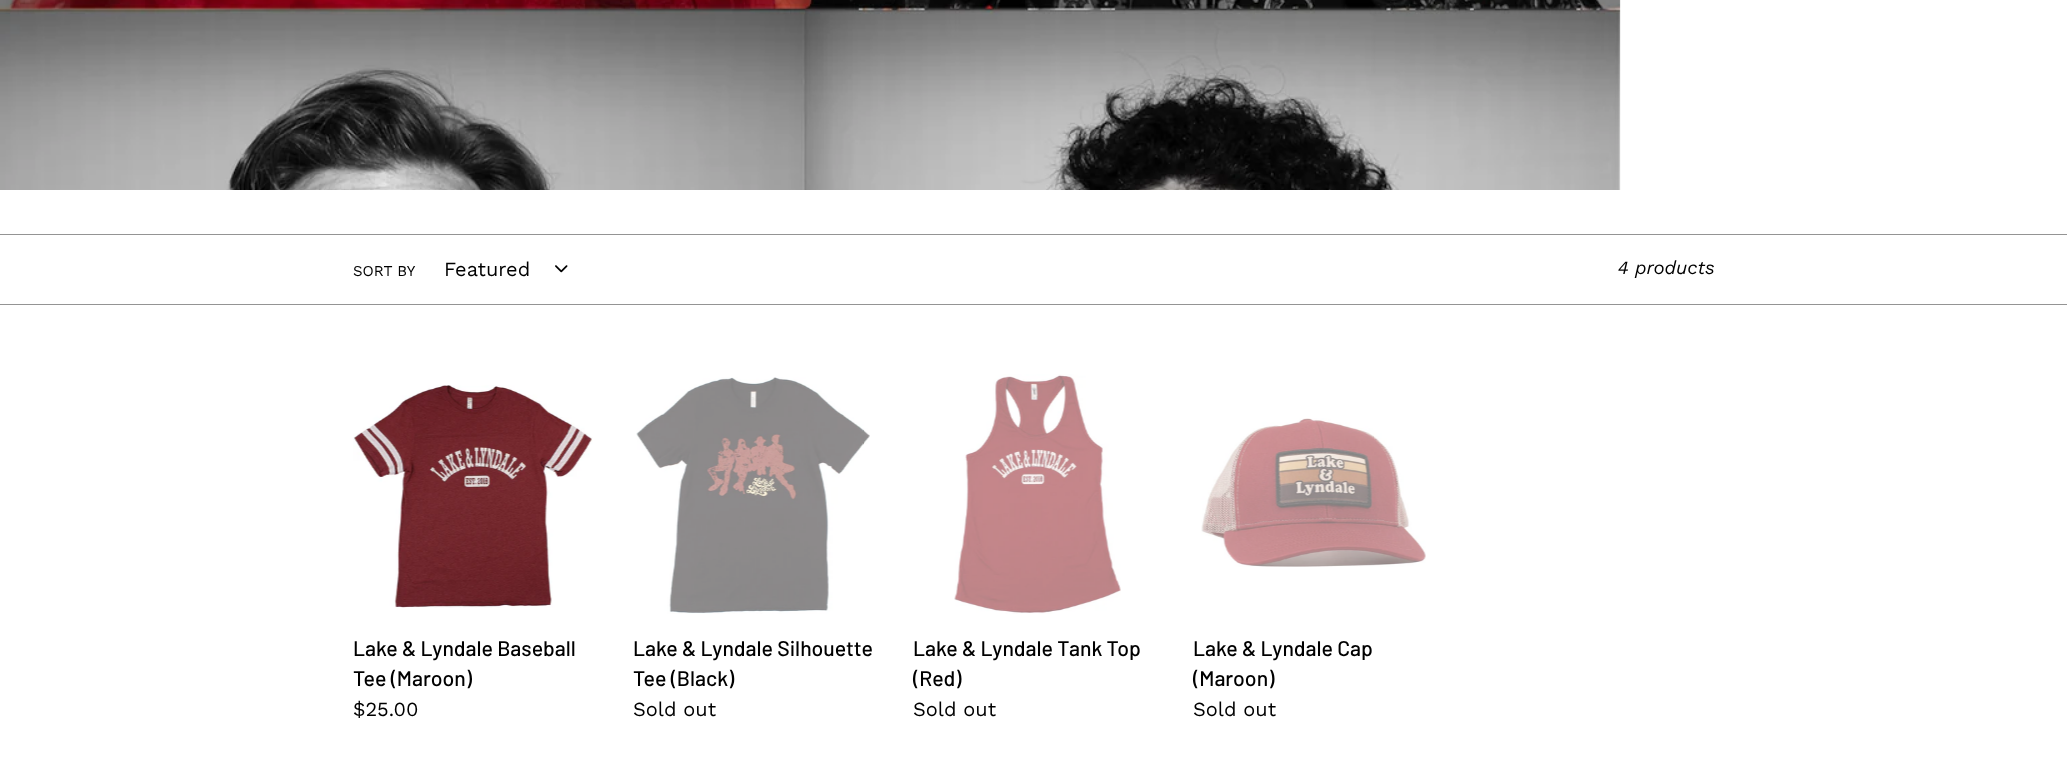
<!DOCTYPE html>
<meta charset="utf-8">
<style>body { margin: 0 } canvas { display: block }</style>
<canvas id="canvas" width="2067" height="762"></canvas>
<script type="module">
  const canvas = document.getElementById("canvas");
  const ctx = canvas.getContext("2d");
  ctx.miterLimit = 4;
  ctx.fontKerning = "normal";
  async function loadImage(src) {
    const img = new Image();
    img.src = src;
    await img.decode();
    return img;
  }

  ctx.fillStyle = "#ffffff";
  ctx.fillRect(0, 0, 2067, 762);
  ctx.drawImage(await loadImage("img1.png"), 0, 0, 1621, 190);
  ctx.fillStyle = "#949494";
  ctx.fillRect(0, 234, 2067, 1);
  ctx.fillRect(0, 304, 2067, 1);
  ctx.font = "15px Work Sans";
  ctx.fillStyle = "#000000";
  ctx.fillText("SORT BY", 353, 276);
  ctx.font = "20px Work Sans";
  ctx.fillText("Featured", 444, 276);
  ctx.drawImage(await loadImage("img2.png"), 555, 265, 13, 8);
  ctx.font = "italic 18.75px Work Sans";
  ctx.fillText("4 products", 1618, 274);
  ctx.drawImage(await loadImage("img3.png"), 353, 385, 240, 223);
  ctx.font = "500 21.25px Barlow";
  ctx.fillText("Lake & Lyndale Baseball", 353, 656);
  ctx.fillText("Tee (Maroon)", 353, 686);
  ctx.font = "20px Work Sans";
  ctx.fillText("$25.00", 353, 716);
  ctx.drawImage(await loadImage("img4.png"), 636, 377, 234, 237);
  ctx.font = "500 21.25px Barlow";
  ctx.fillText("Lake & Lyndale Silhouette", 633, 656);
  ctx.fillText("Tee (Black)", 633, 686);
  ctx.font = "20px Work Sans";
  ctx.fillText("Sold out", 633, 716);
  ctx.drawImage(await loadImage("img5.png"), 954, 374, 167, 240);
  ctx.font = "500 21.25px Barlow";
  ctx.fillText("Lake & Lyndale Tank Top", 913, 656);
  ctx.fillText("(Red)", 913, 686);
  ctx.font = "20px Work Sans";
  ctx.fillText("Sold out", 913, 716);
  ctx.drawImage(await loadImage("img6.png"), 1201, 418, 225, 149);
  ctx.font = "500 21.25px Barlow";
  ctx.fillText("Lake & Lyndale Cap", 1193, 656);
  ctx.fillText("(Maroon)", 1193, 686);
  ctx.font = "20px Work Sans";
  ctx.fillText("Sold out", 1193, 716);
</script>
